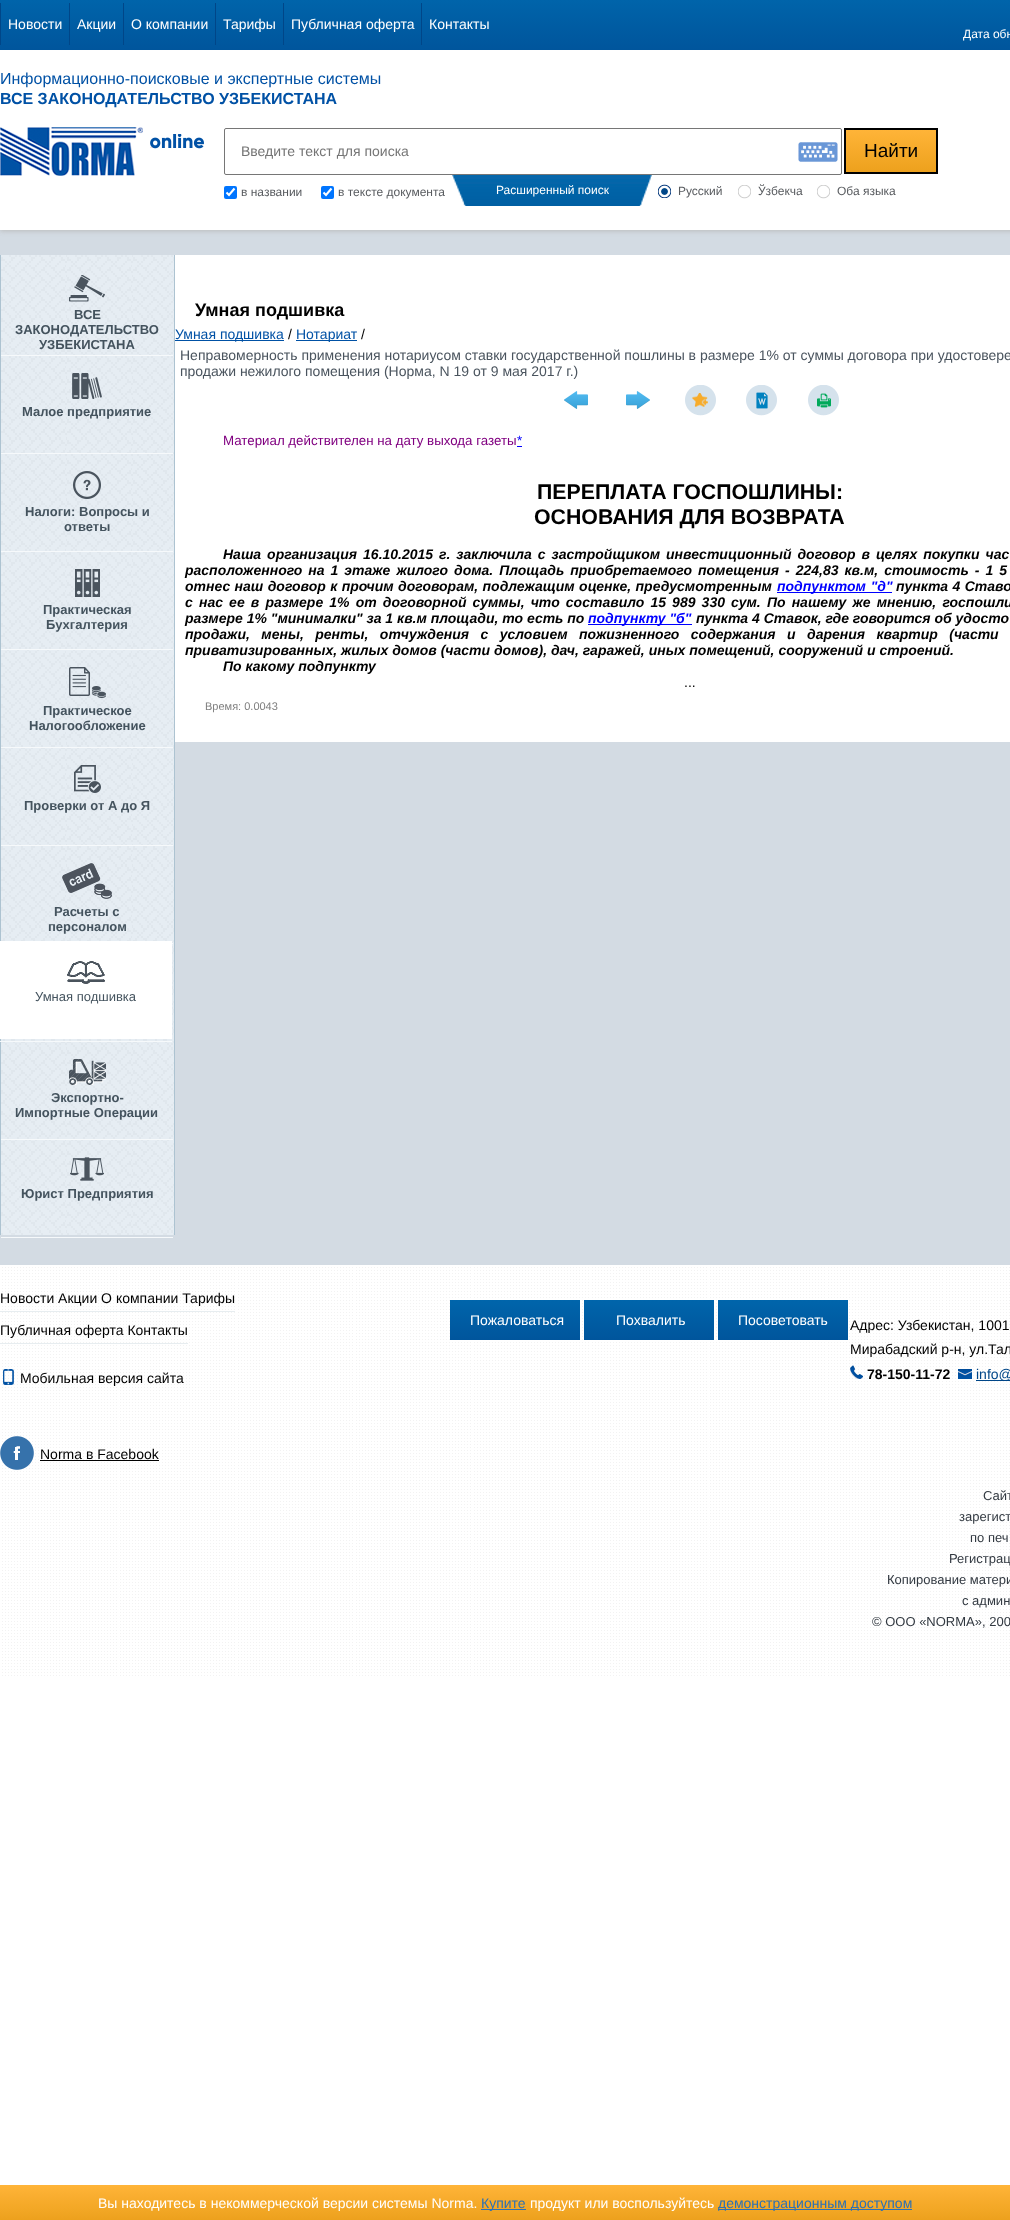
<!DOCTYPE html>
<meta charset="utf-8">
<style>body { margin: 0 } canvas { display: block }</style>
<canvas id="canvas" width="1010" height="2220"></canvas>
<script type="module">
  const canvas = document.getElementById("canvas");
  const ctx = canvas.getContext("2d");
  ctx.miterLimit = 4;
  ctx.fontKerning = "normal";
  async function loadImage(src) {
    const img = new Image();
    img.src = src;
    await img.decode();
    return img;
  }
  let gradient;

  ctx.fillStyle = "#ffffff";
  ctx.fillRect(0, 0, 1010, 2220);
  ctx.fillStyle = "#d3dbe3";
  ctx.fillRect(0, 230, 1010, 1035);
  ctx.fillStyle = "#bbbbbb";
  ctx.filter = "blur(2.5px)";
  ctx.beginPath();
  ctx.rect(0, 1, 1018, 230);
  ctx.fill();
  ctx.filter = "none";
  ctx.fillStyle = "#ffffff";
  ctx.fillRect(0, 50, 1010, 180);
  gradient = ctx.createLinearGradient(600, 0, 600, 50);
  gradient.addColorStop(0, "#0064aa");
  gradient.addColorStop(1, "#00559c");
  ctx.fillStyle = gradient;
  ctx.fillRect(0, 0, 1010, 50);
  ctx.fillStyle = "#004688";
  ctx.fillRect(0, 3, 1, 42);
  ctx.font = "14px Liberation Sans";
  ctx.fillStyle = "#ffffff";
  ctx.fillText("Новости", 8, 29);
  ctx.fillStyle = "#004688";
  ctx.fillRect(69, 3, 1, 42);
  ctx.fillStyle = "#ffffff";
  ctx.fillText("Акции", 77, 29);
  ctx.fillStyle = "#004688";
  ctx.fillRect(123, 3, 1, 42);
  ctx.fillStyle = "#ffffff";
  ctx.fillText("О компании", 131, 29);
  ctx.fillStyle = "#004688";
  ctx.fillRect(215, 3, 1, 42);
  ctx.fillStyle = "#ffffff";
  ctx.fillText("Тарифы", 223, 29);
  ctx.fillStyle = "#004688";
  ctx.fillRect(283, 3, 1, 42);
  ctx.fillStyle = "#ffffff";
  ctx.fillText("Публичная оферта", 291, 29);
  ctx.fillStyle = "#004688";
  ctx.fillRect(421, 3, 1, 42);
  ctx.fillStyle = "#ffffff";
  ctx.fillText("Контакты", 429, 29);
  ctx.font = "12px Liberation Sans";
  ctx.fillText("Дата обн", 963, 38);
  ctx.font = "16px Liberation Sans";
  ctx.fillStyle = "#0051a5";
  ctx.fillText("Информационно-поисковые и экспертные системы", 0, 84);
  ctx.font = "bold 16px Liberation Sans";
  ctx.fillText("ВСЕ ЗАКОНОДАТЕЛЬСТВО УЗБЕКИСТАНА", 0, 104);
  ctx.drawImage(await loadImage("img1.png"), 0, 127, 143, 49);
  ctx.drawImage(await loadImage("img2.png"), 150, 134, 54, 15);
  ctx.beginPath();
  ctx.roundRect(224.5, 128.5, 617, 46, 1.5);
  ctx.strokeStyle = "#767676";
  ctx.stroke();
  ctx.font = "14px Liberation Sans";
  ctx.fillStyle = "#757575";
  ctx.fillText("Введите текст для поиска", 241, 156);
  ctx.drawImage(await loadImage("img3.png"), 798, 142, 40, 20);
  gradient = ctx.createLinearGradient(891, 130, 891, 172);
  gradient.addColorStop(0, "#ffb438");
  gradient.addColorStop(1, "#eda11d");
  ctx.fillStyle = gradient;
  ctx.fillRect(846, 130, 90, 42);
  ctx.strokeStyle = "#000000";
  ctx.lineWidth = 2;
  ctx.strokeRect(845, 129, 92, 44);
  ctx.font = "19px Liberation Sans";
  ctx.fillStyle = "#000000";
  ctx.fillText("Найти", 864, 157);
  ctx.fillStyle = "#0075ff";
  ctx.beginPath();
  ctx.roundRect(224, 186, 13, 13, 2);
  ctx.fill();
  ctx.beginPath();
  ctx.moveTo(226.5, 192.5);
  ctx.lineTo(229, 195);
  ctx.lineTo(234.5, 188.5);
  ctx.strokeStyle = "#ffffff";
  ctx.lineWidth = 2.1;
  ctx.stroke();
  ctx.font = "12px Liberation Sans";
  ctx.fillStyle = "#585b5f";
  ctx.fillText("в названии", 241, 196);
  ctx.fillStyle = "#0075ff";
  ctx.beginPath();
  ctx.roundRect(321, 186, 13, 13, 2);
  ctx.fill();
  ctx.beginPath();
  ctx.moveTo(323.5, 192.5);
  ctx.lineTo(326, 195);
  ctx.lineTo(331.5, 188.5);
  ctx.stroke();
  ctx.fillStyle = "#585b5f";
  ctx.fillText("в тексте документа", 338, 196);
  ctx.drawImage(await loadImage("img4.png"), 452, 175, 200, 31);
  ctx.fillStyle = "#ffffff";
  ctx.fillText("Расширенный поиск", 496, 194);
  ctx.drawImage(await loadImage("img5.png"), 658, 184, 13, 14);
  ctx.fillStyle = "#585b5f";
  ctx.fillText("Русский", 678, 195);
  ctx.drawImage(await loadImage("img6.png"), 738, 185, 13, 14);
  ctx.fillText("Ўзбекча", 758, 195);
  ctx.drawImage(await loadImage("img6.png"), 817, 185, 13, 14);
  ctx.fillText("Оба языка", 837, 195);
  ctx.drawImage(await loadImage("img7.png"), 1, 255, 173, 980);
  ctx.fillStyle = "#adc3d1";
  ctx.fillRect(174, 255, 1, 980);
  ctx.fillRect(0, 255, 1, 980);
  ctx.fillStyle = "#f6f9fb";
  ctx.fillRect(1, 355, 172, 1);
  ctx.drawImage(await loadImage("img8.png"), 69, 275, 36, 27);
  ctx.font = "bold 13px Liberation Sans";
  ctx.fillStyle = "#44535e";
  ctx.fillText("ВСЕ", 74, 319);
  ctx.fillText("ЗАКОНОДАТЕЛЬСТВО", 15, 334);
  ctx.fillText("УЗБЕКИСТАНА", 39, 349);
  ctx.fillStyle = "#f6f9fb";
  ctx.fillRect(1, 453, 172, 1);
  ctx.drawImage(await loadImage("img9.png"), 72, 373, 30, 26);
  ctx.fillStyle = "#44535e";
  ctx.fillText("Малое предприятие", 22, 416);
  ctx.fillStyle = "#f6f9fb";
  ctx.fillRect(1, 551, 172, 1);
  ctx.drawImage(await loadImage("img10.png"), 73, 471, 28, 28);
  ctx.fillStyle = "#44535e";
  ctx.fillText("Налоги: Вопросы и", 25, 516);
  ctx.fillText("ответы", 64, 531);
  ctx.fillStyle = "#f6f9fb";
  ctx.fillRect(1, 649, 172, 1);
  ctx.drawImage(await loadImage("img11.png"), 75, 569, 25, 28);
  ctx.fillStyle = "#44535e";
  ctx.fillText("Практическая", 43, 614);
  ctx.fillText("Бухгалтерия", 46, 629);
  ctx.fillStyle = "#f6f9fb";
  ctx.fillRect(1, 747, 172, 1);
  ctx.drawImage(await loadImage("img12.png"), 69, 667, 37, 31);
  ctx.fillStyle = "#44535e";
  ctx.fillText("Практическое", 43, 715);
  ctx.fillText("Налогообложение", 29, 730);
  ctx.fillStyle = "#f6f9fb";
  ctx.fillRect(1, 845, 172, 1);
  ctx.drawImage(await loadImage("img13.png"), 74, 765, 27, 28);
  ctx.fillStyle = "#44535e";
  ctx.fillText("Проверки от А до Я", 24, 810);
  ctx.fillStyle = "#f6f9fb";
  ctx.fillRect(172, 943, 1, 1);
  ctx.drawImage(await loadImage("img14.png"), 62, 863, 50, 36);
  ctx.fillStyle = "#44535e";
  ctx.fillText("Расчеты с", 54, 916);
  ctx.fillText("персоналом", 48, 931);
  ctx.fillStyle = "#ffffff";
  ctx.fillRect(0, 941, 172, 98);
  ctx.fillStyle = "#f6f9fb";
  ctx.fillRect(0, 1041, 172, 1);
  ctx.drawImage(await loadImage("img15.png"), 67, 961, 38, 23);
  ctx.font = "13px Liberation Sans";
  ctx.fillStyle = "#44535e";
  ctx.fillText("Умная подшивка", 35, 1001);
  ctx.fillStyle = "#f6f9fb";
  ctx.fillRect(1, 1139, 172, 1);
  ctx.drawImage(await loadImage("img16.png"), 69, 1059, 37, 26);
  ctx.font = "bold 13px Liberation Sans";
  ctx.fillStyle = "#44535e";
  ctx.fillText("Экспортно-", 51, 1102);
  ctx.fillText("Импортные Операции", 15, 1117);
  ctx.fillStyle = "#f6f9fb";
  ctx.fillRect(1, 1237, 172, 1);
  ctx.drawImage(await loadImage("img17.png"), 70, 1157, 34, 24);
  ctx.fillStyle = "#44535e";
  ctx.fillText("Юрист Предприятия", 21, 1198);
  ctx.fillStyle = "#ffffff";
  ctx.fillRect(175, 255, 835, 487);
  ctx.font = "bold 18px Liberation Sans";
  ctx.fillStyle = "#000000";
  ctx.fillText("Умная подшивка", 195, 316);
  ctx.fillStyle = "#0051a5";
  ctx.fillRect(175, 340, 109, 1);
  ctx.font = "14px Liberation Sans";
  ctx.fillText("Умная подшивка", 175, 339);
  ctx.fillStyle = "#000000";
  ctx.fillText("/", 288, 339);
  ctx.fillStyle = "#0051a5";
  ctx.fillRect(296, 340, 61, 1);
  ctx.fillText("Нотариат", 296, 339);
  ctx.fillStyle = "#000000";
  ctx.fillText("/", 361, 339);
  ctx.fillStyle = "#4a545e";
  ctx.fillText("Неправомерность применения нотариусом ставки государственной пошлины в размере 1% от суммы договора при удостовере", 180, 360);
  ctx.fillText("продажи нежилого помещения (Норма, N 19 от 9 мая 2017 г.)", 180, 376);
  ctx.drawImage(await loadImage("img18.png"), 564, 391, 24, 18);
  ctx.drawImage(await loadImage("img19.png"), 626, 391, 24, 18);
  ctx.drawImage(await loadImage("img20.png"), 685, 385, 31, 31);
  ctx.drawImage(await loadImage("img21.png"), 746, 385, 31, 31);
  ctx.drawImage(await loadImage("img22.png"), 808, 385, 31, 31);
  ctx.font = "13.3px Liberation Sans";
  ctx.fillStyle = "#800080";
  ctx.fillText("Материал действителен на дату выхода газеты", 223, 445);
  ctx.fillStyle = "#0000ff";
  ctx.fillText("*", 517, 445);
  ctx.fillRect(517, 446, 5, 1);
  ctx.font = "bold 21.3px Liberation Sans";
  ctx.fillStyle = "#000000";
  ctx.fillText("ПЕРЕПЛАТА ГОСПОШЛИНЫ:", 537, 499);
  ctx.fillText("ОСНОВАНИЯ ДЛЯ ВОЗВРАТА", 534, 524);
  ctx.wordSpacing = "2.1px";
  ctx.font = "italic bold 14px Liberation Sans";
  ctx.fillText("Наша организация 16.10.2015 г. заключила с застройщиком инвестиционный договор в целях покупки час", 223, 559);
  ctx.fillText("расположенного на 1 этаже жилого дома. Площадь приобретаемого помещения - 224,83 кв.м, стоимость - 1 5", 185, 575);
  ctx.wordSpacing = "0.5px";
  ctx.fillText("отнес наш договор к прочим договорам, подлежащим оценке, предусмотренным", 185, 591);
  ctx.fillStyle = "#0000ff";
  ctx.fillRect(777, 592, 115, 1);
  ctx.wordSpacing = "1px";
  ctx.fillText("подпунктом \"д\"", 777, 591);
  ctx.wordSpacing = "0.5px";
  ctx.fillStyle = "#000000";
  ctx.fillText("пункта 4 Ставо", 896, 591);
  ctx.wordSpacing = "2.25px";
  ctx.fillText("с нас ее в размере 1% от договорной суммы, что составило 15 989 330 сум. По нашему же мнению, госпошли", 185, 607);
  ctx.wordSpacing = "0px";
  ctx.fillText("размере 1% \"минималки\" за 1 кв.м площади, то есть по", 185, 623);
  ctx.fillStyle = "#0000ff";
  ctx.fillRect(588, 624, 104, 1);
  ctx.fillText("подпункту \"б\"", 588, 623);
  ctx.fillStyle = "#000000";
  ctx.fillText("пункта 4 Ставок, где говорится об удосто", 696, 623);
  ctx.wordSpacing = "7.6px";
  ctx.fillText("продажи, мены, ренты, отчуждения с условием пожизненного содержания и дарения квартир (части", 185, 639);
  ctx.wordSpacing = "0px";
  ctx.fillText("приватизированных, жилых домов (части домов), дач, гаражей, иных помещений, сооружений и строений.", 185, 655);
  ctx.fillText("По какому подпункту", 223, 671);
  ctx.font = "14px Liberation Sans";
  ctx.fillText("...", 684, 687);
  ctx.font = "11px Liberation Sans";
  ctx.fillStyle = "#7f7f7f";
  ctx.fillText("Время: 0.0043", 205, 710);
  ctx.drawImage(await loadImage("img23.png"), 2, 1267, 1008, 409);
  ctx.font = "14px Liberation Sans";
  ctx.fillStyle = "#000000";
  ctx.fillText("Новости Акции О компании Тарифы", 0, 1303);
  ctx.fillStyle = "#e7edf0";
  ctx.fillRect(0, 1311, 235, 1);
  ctx.fillStyle = "#000000";
  ctx.fillText("Публичная оферта Контакты", 0, 1335);
  ctx.fillStyle = "#e7edf0";
  ctx.fillRect(0, 1343, 188, 1);
  gradient = ctx.createLinearGradient(515, 1300, 515, 1340);
  gradient.addColorStop(0, "#0065ab");
  gradient.addColorStop(1, "#00559c");
  ctx.fillStyle = gradient;
  ctx.fillRect(450, 1300, 130, 40);
  ctx.fillStyle = "#ffffff";
  ctx.fillText("Пожаловаться", 470, 1325);
  gradient = ctx.createLinearGradient(649, 1300, 649, 1340);
  gradient.addColorStop(0, "#0065ab");
  gradient.addColorStop(1, "#00559c");
  ctx.fillStyle = gradient;
  ctx.fillRect(584, 1300, 130, 40);
  ctx.fillStyle = "#ffffff";
  ctx.fillText("Похвалить", 616, 1325);
  gradient = ctx.createLinearGradient(783, 1300, 783, 1340);
  gradient.addColorStop(0, "#0065ab");
  gradient.addColorStop(1, "#00559c");
  ctx.fillStyle = gradient;
  ctx.fillRect(718, 1300, 130, 40);
  ctx.fillStyle = "#ffffff";
  ctx.fillText("Посоветовать", 738, 1325);
  ctx.fillStyle = "#000000";
  ctx.fillText("Адрес: Узбекистан, 1001", 850, 1330);
  ctx.fillText("Мирабадский р-н, ул.Тал", 850, 1354);
  ctx.drawImage(await loadImage("img24.png"), 850, 1365, 13, 14);
  ctx.font = "bold 14px Liberation Sans";
  ctx.fillText("78-150-11-72", 867, 1379);
  ctx.drawImage(await loadImage("img25.png"), 958, 1369, 14, 10);
  ctx.fillStyle = "#004688";
  ctx.fillRect(976, 1380, 34, 1);
  ctx.font = "14px Liberation Sans";
  ctx.fillText("info@", 976, 1379);
  ctx.drawImage(await loadImage("img26.png"), 3, 1369, 11, 16);
  ctx.fillStyle = "#000000";
  ctx.fillText("Мобильная версия сайта", 20, 1383);
  ctx.drawImage(await loadImage("img27.png"), 0, 1436, 34, 34);
  ctx.fillText("Norma в Facebook", 40, 1459);
  ctx.fillRect(40, 1460, 119, 1);
  ctx.font = "13px Liberation Sans";
  ctx.fillStyle = "#323941";
  ctx.fillText("Сайт", 983, 1500);
  ctx.fillText("зарегист", 959, 1521);
  ctx.fillText("по печ", 970, 1542);
  ctx.fillText("Регистрац", 949, 1563);
  ctx.fillText("Копирование матери", 887, 1584);
  ctx.fillText("с админ", 962, 1605);
  ctx.fillText("© ООО «NORMA», 200", 872, 1626);
  gradient = ctx.createLinearGradient(505, 2185, 505, 2220);
  gradient.addColorStop(0, "#ffb438");
  gradient.addColorStop(1, "#eda11d");
  ctx.fillStyle = gradient;
  ctx.fillRect(0, 2185, 1010, 35);
  ctx.font = "14px Liberation Sans";
  ctx.fillStyle = "#ffffff";
  ctx.fillText("Вы находитесь в некоммерческой версии системы Norma.", 98, 2208);
  ctx.fillStyle = "#2d71b4";
  ctx.fillRect(481, 2209, 45, 1);
  ctx.fillText("Купите", 481, 2208);
  ctx.fillStyle = "#ffffff";
  ctx.fillText("продукт или воспользуйтесь", 530, 2208);
  ctx.fillStyle = "#2d71b4";
  ctx.fillRect(718, 2209, 194, 1);
  ctx.fillText("демонстрационным доступом", 718, 2208);
</script>
